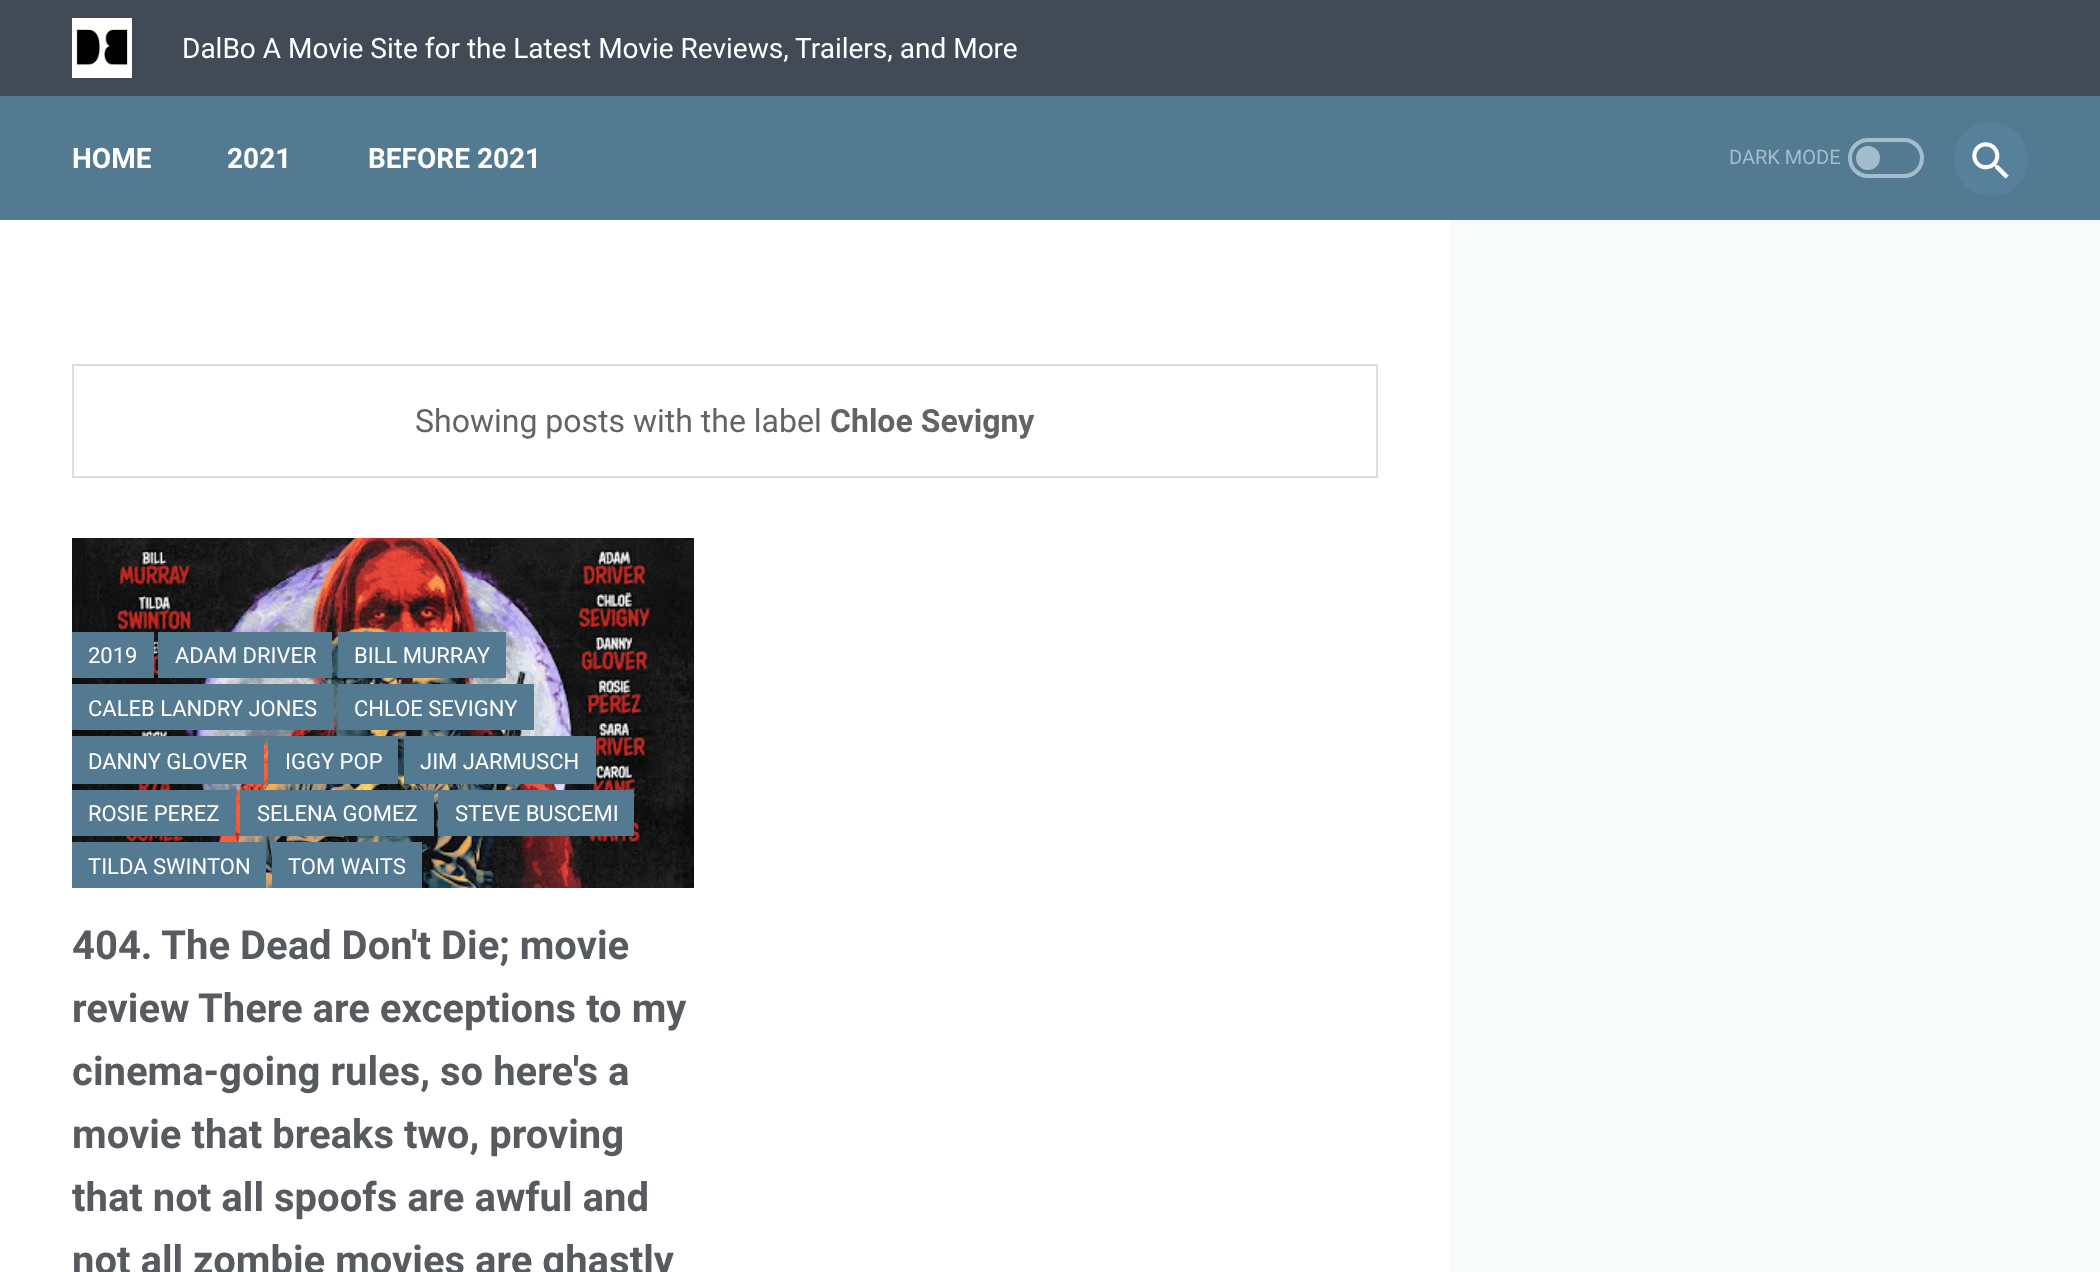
<!DOCTYPE html>
<meta charset="utf-8">
<style>body { margin: 0 } canvas { display: block }</style>
<canvas id="canvas" width="2100" height="1272"></canvas>
<script type="module">
  const canvas = document.getElementById("canvas");
  const ctx = canvas.getContext("2d");
  ctx.miterLimit = 4;
  ctx.fontKerning = "normal";
  async function loadImage(src) {
    const img = new Image();
    img.src = src;
    await img.decode();
    return img;
  }

  ctx.fillStyle = "#547a92";
  ctx.fillRect(0, 0, 2100, 1272);
  ctx.fillStyle = "#424a56";
  ctx.fillRect(0, 0, 2100, 96);
  ctx.drawImage(await loadImage("img1.png"), 72, 18, 60, 60);
  ctx.font = "28px Roboto";
  ctx.fillStyle = "#ffffff";
  ctx.fillText("DalBo A Movie Site for the Latest Movie Reviews, Trailers, and More", 182, 58);
  ctx.font = "bold 28px Roboto";
  ctx.fillText("HOME", 72, 168);
  ctx.fillText("2021", 227, 168);
  ctx.fillText("BEFORE 2021", 368, 168);
  ctx.font = "20px Roboto";
  ctx.fillStyle = "#a3bdce";
  ctx.fillText("DARK MODE", 1729, 164);
  ctx.beginPath();
  ctx.roundRect(1850, 140, 72, 36, 18);
  ctx.strokeStyle = "#a3bdce";
  ctx.lineWidth = 4;
  ctx.stroke();
  ctx.beginPath();
  ctx.arc(1868, 158, 12, 0, Math.PI * 2);
  ctx.fill();
  ctx.fillStyle = "#57809a";
  ctx.beginPath();
  ctx.roundRect(1954, 122, 74, 74, 36);
  ctx.fill();
  ctx.drawImage(await loadImage("img2.png"), 1972, 142, 37, 37);
  ctx.fillStyle = "#ffffff";
  ctx.fillRect(0, 220, 1450, 1052);
  ctx.strokeStyle = "#dedede";
  ctx.lineWidth = 2;
  ctx.strokeRect(73, 365, 1304, 112);
  ctx.font = "32px Roboto";
  ctx.fillStyle = "#636363";
  ctx.fillText("Showing posts with the label", 415, 432);
  ctx.font = "bold 32px Roboto";
  ctx.fillText("Chloe Sevigny", 830, 432);
  ctx.drawImage(await loadImage("img3.png"), 72, 538, 622, 350);
  ctx.fillStyle = "#547a92";
  ctx.fillRect(72, 632, 82, 46);
  ctx.font = "22px Roboto";
  ctx.fillStyle = "#ffffff";
  ctx.fillText("2019", 88, 663);
  ctx.fillStyle = "#547a92";
  ctx.fillRect(158, 632, 174, 46);
  ctx.fillStyle = "#ffffff";
  ctx.fillText("ADAM DRIVER", 175, 663);
  ctx.fillStyle = "#547a92";
  ctx.fillRect(338, 632, 168, 46);
  ctx.fillStyle = "#ffffff";
  ctx.fillText("BILL MURRAY", 354, 663);
  ctx.fillStyle = "#547a92";
  ctx.fillRect(72, 684, 262, 46);
  ctx.fillStyle = "#ffffff";
  ctx.fillText("CALEB LANDRY JONES", 88, 716);
  ctx.fillStyle = "#547a92";
  ctx.fillRect(338, 684, 196, 46);
  ctx.fillStyle = "#ffffff";
  ctx.fillText("CHLOE SEVIGNY", 354, 716);
  ctx.fillStyle = "#547a92";
  ctx.fillRect(72, 736, 192, 48);
  ctx.fillStyle = "#ffffff";
  ctx.fillText("DANNY GLOVER", 88, 769);
  ctx.fillStyle = "#547a92";
  ctx.fillRect(268, 736, 130, 48);
  ctx.fillStyle = "#ffffff";
  ctx.fillText("IGGY POP", 285, 769);
  ctx.fillStyle = "#547a92";
  ctx.fillRect(404, 736, 192, 48);
  ctx.fillStyle = "#ffffff";
  ctx.fillText("JIM JARMUSCH", 420, 769);
  ctx.fillStyle = "#547a92";
  ctx.fillRect(72, 790, 164, 46);
  ctx.fillStyle = "#ffffff";
  ctx.fillText("ROSIE PEREZ", 88, 821);
  ctx.fillStyle = "#547a92";
  ctx.fillRect(240, 790, 194, 46);
  ctx.fillStyle = "#ffffff";
  ctx.fillText("SELENA GOMEZ", 257, 821);
  ctx.fillStyle = "#547a92";
  ctx.fillRect(438, 790, 196, 46);
  ctx.fillStyle = "#ffffff";
  ctx.fillText("STEVE BUSCEMI", 455, 821);
  ctx.fillStyle = "#547a92";
  ctx.fillRect(72, 842, 194, 46);
  ctx.fillStyle = "#ffffff";
  ctx.fillText("TILDA SWINTON", 88, 874);
  ctx.fillStyle = "#547a92";
  ctx.fillRect(272, 842, 150, 46);
  ctx.fillStyle = "#ffffff";
  ctx.fillText("TOM WAITS", 288, 874);
  ctx.font = "bold 40px Roboto";
  ctx.fillStyle = "#575a5f";
  ctx.fillText("404. The Dead Don't Die; movie", 72, 959);
  ctx.fillText("review", 72, 1022);
  ctx.fillText("There are exceptions to my", 198, 1022);
  ctx.fillText("cinema-going rules, so here's a", 72, 1085);
  ctx.fillText("movie that breaks two, proving", 72, 1148);
  ctx.fillText("that not all spoofs are awful and", 72, 1211);
  ctx.fillText("not all zombie movies are ghastly", 72, 1274);
  ctx.fillStyle = "#f8fafa";
  ctx.fillRect(1450, 220, 650, 1052);
</script>
